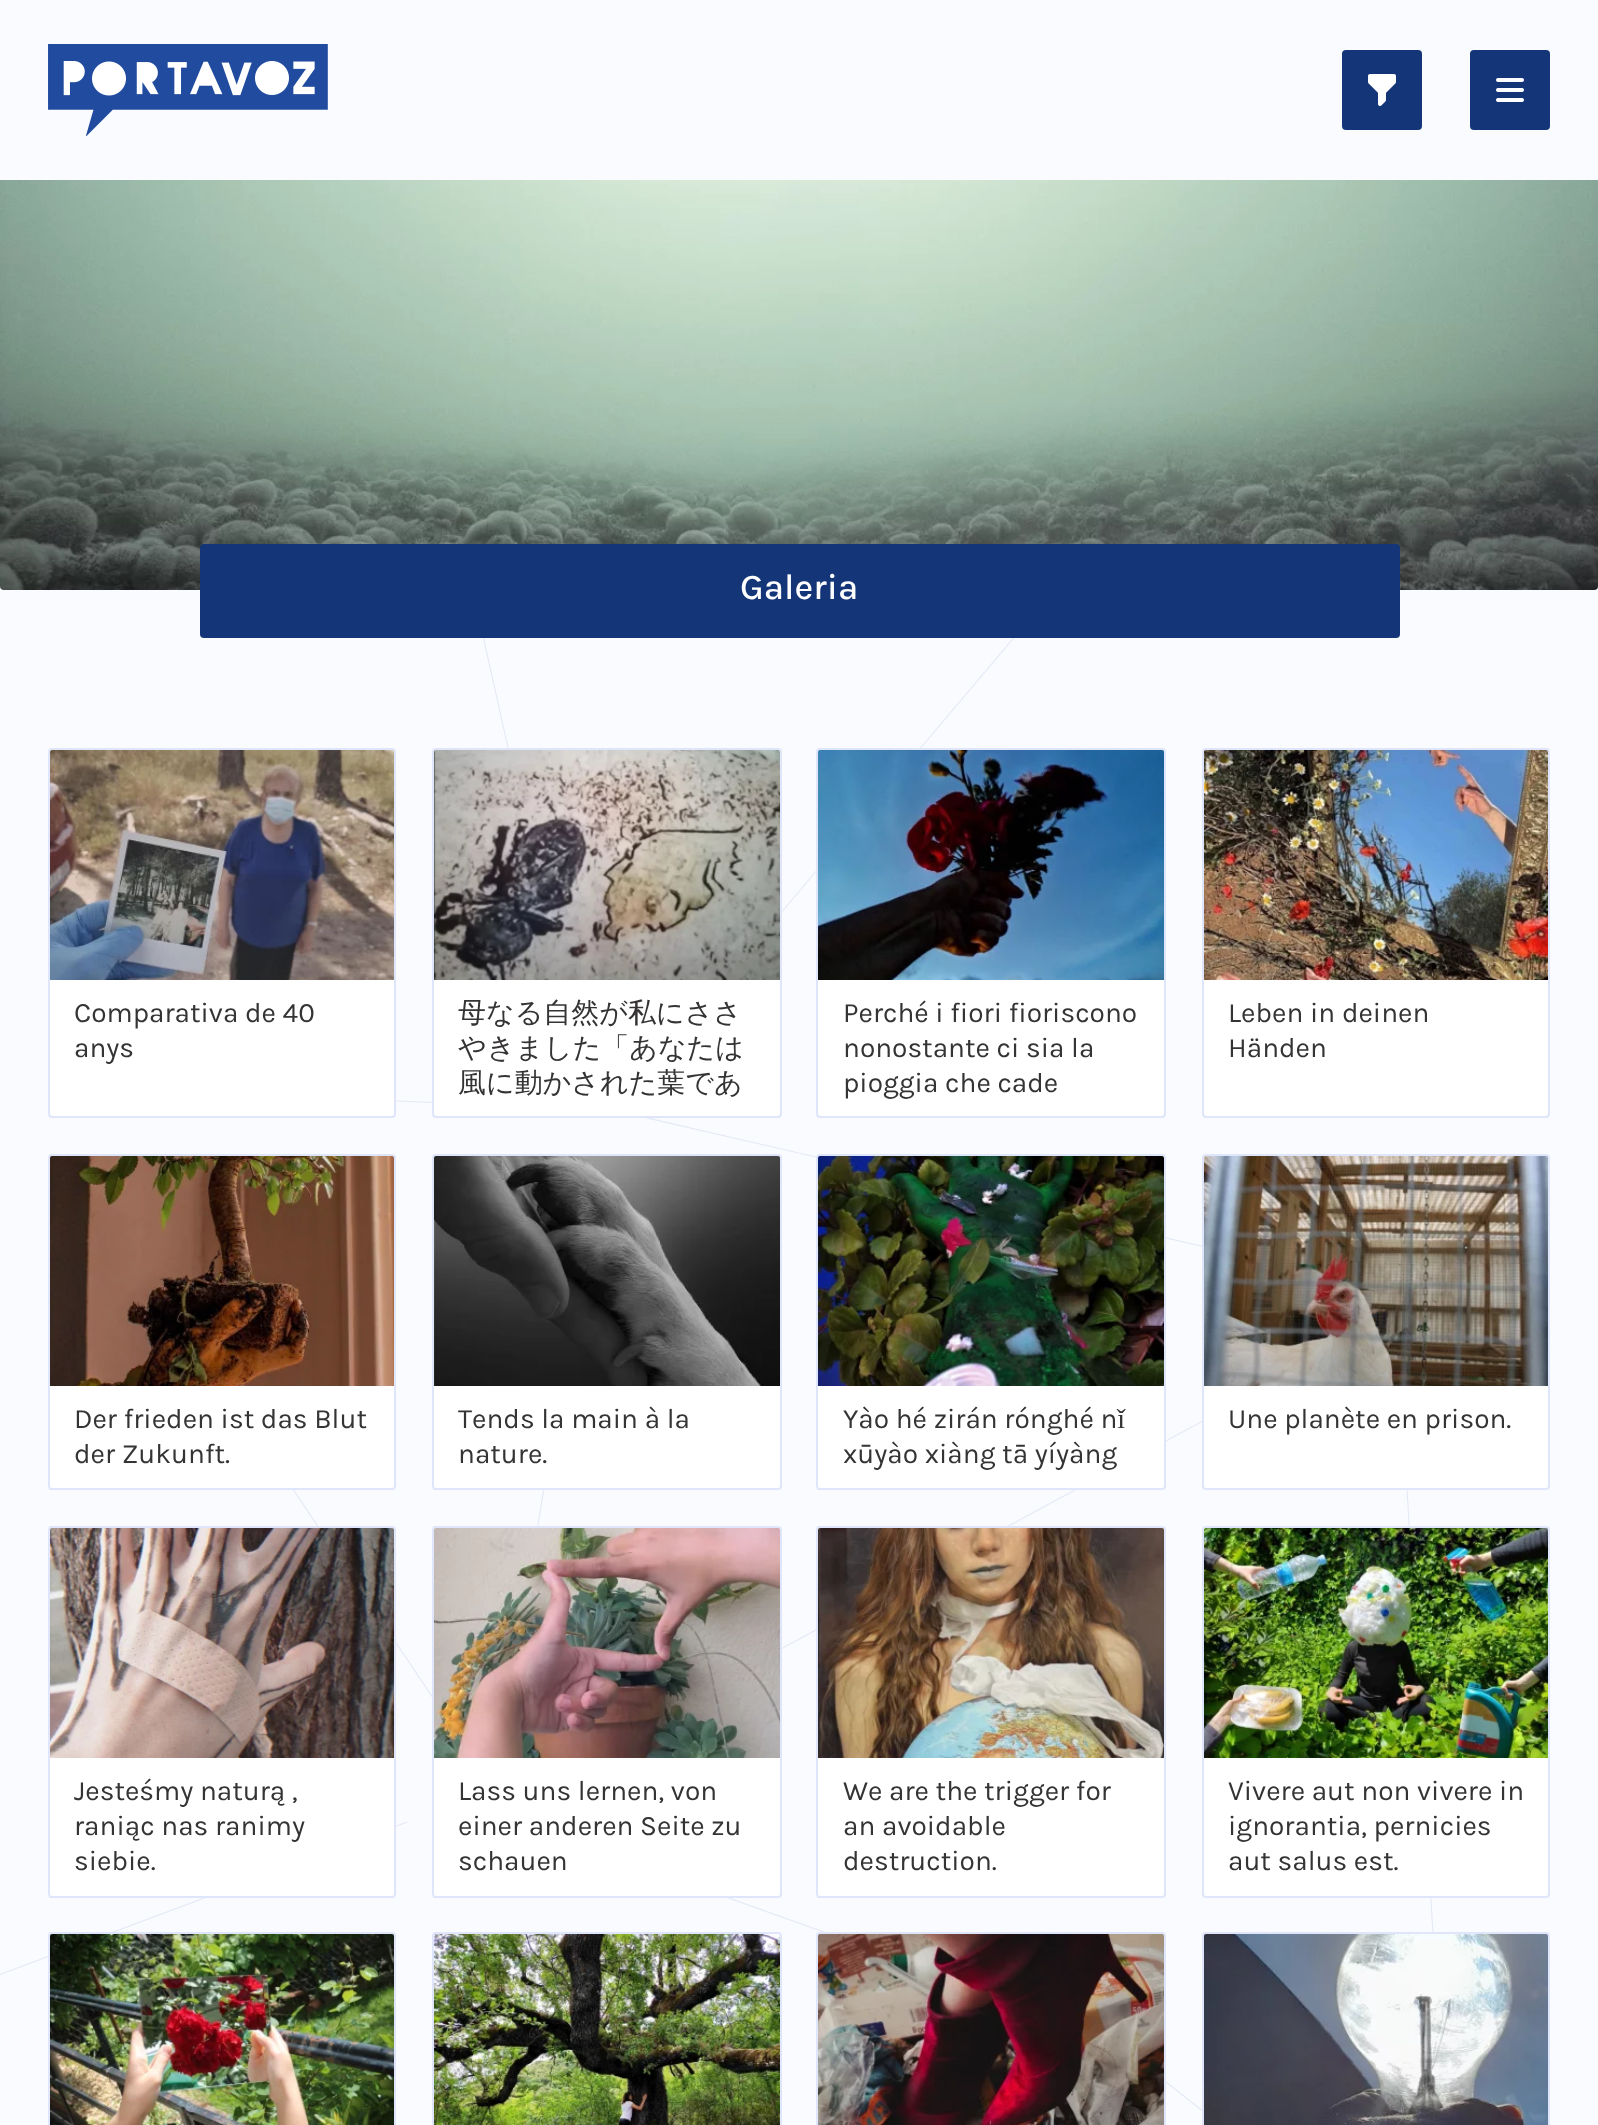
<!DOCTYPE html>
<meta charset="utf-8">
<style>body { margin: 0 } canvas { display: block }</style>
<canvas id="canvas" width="1598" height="2125"></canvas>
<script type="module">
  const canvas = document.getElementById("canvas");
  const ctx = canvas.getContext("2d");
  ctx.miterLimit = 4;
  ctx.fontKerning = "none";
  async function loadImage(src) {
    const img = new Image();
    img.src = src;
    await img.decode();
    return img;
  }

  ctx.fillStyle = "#fafbff";
  ctx.fillRect(0, 0, 1598, 2125);
  ctx.drawImage(await loadImage("img1.png"), 0, 638, 1434, 1473);
  ctx.drawImage(await loadImage("img2.png"), 48, 44, 280, 92);
  ctx.fillStyle = "#143678";
  ctx.beginPath();
  ctx.roundRect(1342, 50, 80, 80, 4);
  ctx.fill();
  ctx.drawImage(await loadImage("img3.png"), 1368, 74, 28, 32);
  ctx.beginPath();
  ctx.roundRect(1470, 50, 80, 80, 4);
  ctx.fill();
  ctx.drawImage(await loadImage("img4.png"), 1496, 78, 28, 24);
  ctx.drawImage(await loadImage("img5.png"), 0, 180, 1598, 410);
  ctx.beginPath();
  ctx.roundRect(200, 544, 1200, 94, 4);
  ctx.fill();
  ctx.font = "500 36px Karla";
  ctx.fillStyle = "#ffffff";
  ctx.fillText("Galeria", 740, 599);
  ctx.beginPath();
  ctx.roundRect(49, 749, 346, 368, 3);
  ctx.fill();
  ctx.strokeStyle = "#dfe6fb";
  ctx.lineWidth = 2;
  ctx.stroke();
  ctx.drawImage(await loadImage("img6.png"), 50, 750, 344, 230);
  ctx.font = "28px Karla";
  ctx.fillStyle = "#353333";
  ctx.fillText("Comparativa de 40", 74, 1022);
  ctx.fillText("anys", 74, 1057);
  ctx.fillStyle = "#ffffff";
  ctx.beginPath();
  ctx.roundRect(433, 749, 348, 368, 3);
  ctx.fill();
  ctx.stroke();
  ctx.drawImage(await loadImage("img7.png"), 434, 750, 346, 230);
  ctx.font = "500 28px WenQuanYi Zen Hei";
  ctx.fillStyle = "#353333";
  ctx.fillText("母なる自然が私にささ", 458, 1022);
  ctx.fillText("やきました「あなたは", 458, 1057);
  ctx.fillText("風に動かされた葉であ", 458, 1092);
  ctx.fillStyle = "#ffffff";
  ctx.beginPath();
  ctx.roundRect(817, 749, 348, 368, 3);
  ctx.fill();
  ctx.stroke();
  ctx.drawImage(await loadImage("img8.png"), 818, 750, 346, 230);
  ctx.font = "28px Karla";
  ctx.fillStyle = "#353333";
  ctx.fillText("Perché i fiori fioriscono", 843, 1022);
  ctx.fillText("nonostante ci sia la", 843, 1057);
  ctx.fillText("pioggia che cade", 843, 1092);
  ctx.fillStyle = "#ffffff";
  ctx.beginPath();
  ctx.roundRect(1203, 749, 346, 368, 3);
  ctx.fill();
  ctx.stroke();
  ctx.drawImage(await loadImage("img9.png"), 1204, 750, 344, 230);
  ctx.fillStyle = "#353333";
  ctx.fillText("Leben in deinen", 1228, 1022);
  ctx.fillText("Händen", 1228, 1057);
  ctx.fillStyle = "#ffffff";
  ctx.beginPath();
  ctx.roundRect(49, 1155, 346, 334, 3);
  ctx.fill();
  ctx.stroke();
  ctx.drawImage(await loadImage("img10.png"), 50, 1156, 344, 230);
  ctx.fillStyle = "#353333";
  ctx.fillText("Der frieden ist das Blut", 74, 1428);
  ctx.fillText("der Zukunft.", 74, 1463);
  ctx.fillStyle = "#ffffff";
  ctx.beginPath();
  ctx.roundRect(433, 1155, 348, 334, 3);
  ctx.fill();
  ctx.stroke();
  ctx.drawImage(await loadImage("img11.png"), 434, 1156, 346, 230);
  ctx.fillStyle = "#353333";
  ctx.fillText("Tends la main à la", 458, 1428);
  ctx.fillText("nature.", 458, 1463);
  ctx.fillStyle = "#ffffff";
  ctx.beginPath();
  ctx.roundRect(817, 1155, 348, 334, 3);
  ctx.fill();
  ctx.stroke();
  ctx.drawImage(await loadImage("img12.png"), 818, 1156, 346, 230);
  ctx.fillStyle = "#353333";
  ctx.fillText("Yào hé zirán rónghé nǐ", 843, 1428);
  ctx.fillText("xūyào xiàng tā yíyàng", 843, 1463);
  ctx.fillStyle = "#ffffff";
  ctx.beginPath();
  ctx.roundRect(1203, 1155, 346, 334, 3);
  ctx.fill();
  ctx.stroke();
  ctx.drawImage(await loadImage("img13.png"), 1204, 1156, 344, 230);
  ctx.fillStyle = "#353333";
  ctx.fillText("Une planète en prison.", 1228, 1428);
  ctx.fillStyle = "#ffffff";
  ctx.beginPath();
  ctx.roundRect(49, 1527, 346, 370, 3);
  ctx.fill();
  ctx.stroke();
  ctx.drawImage(await loadImage("img14.png"), 50, 1528, 344, 230);
  ctx.fillStyle = "#353333";
  ctx.fillText("Jesteśmy naturą ,", 74, 1800);
  ctx.fillText("raniąc nas ranimy", 74, 1835);
  ctx.fillText("siebie.", 74, 1870);
  ctx.fillStyle = "#ffffff";
  ctx.beginPath();
  ctx.roundRect(433, 1527, 348, 370, 3);
  ctx.fill();
  ctx.stroke();
  ctx.drawImage(await loadImage("img15.png"), 434, 1528, 346, 230);
  ctx.fillStyle = "#353333";
  ctx.fillText("Lass uns lernen, von", 458, 1800);
  ctx.fillText("einer anderen Seite zu", 458, 1835);
  ctx.fillText("schauen", 458, 1870);
  ctx.fillStyle = "#ffffff";
  ctx.beginPath();
  ctx.roundRect(817, 1527, 348, 370, 3);
  ctx.fill();
  ctx.stroke();
  ctx.drawImage(await loadImage("img16.png"), 818, 1528, 346, 230);
  ctx.fillStyle = "#353333";
  ctx.fillText("We are the trigger for", 843, 1800);
  ctx.fillText("an avoidable", 843, 1835);
  ctx.fillText("destruction.", 843, 1870);
  ctx.fillStyle = "#ffffff";
  ctx.beginPath();
  ctx.roundRect(1203, 1527, 346, 370, 3);
  ctx.fill();
  ctx.stroke();
  ctx.drawImage(await loadImage("img17.png"), 1204, 1528, 344, 230);
  ctx.fillStyle = "#353333";
  ctx.fillText("Vivere aut non vivere in", 1228, 1800);
  ctx.fillText("ignorantia, pernicies", 1228, 1835);
  ctx.fillText("aut salus est.", 1228, 1870);
  ctx.beginPath();
  ctx.roundRect(49, 1933, 346, 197, 3);
  ctx.stroke();
  ctx.drawImage(await loadImage("img18.png"), 50, 1934, 344, 191);
  ctx.beginPath();
  ctx.roundRect(433, 1933, 348, 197, 3);
  ctx.stroke();
  ctx.drawImage(await loadImage("img19.png"), 434, 1934, 346, 191);
  ctx.beginPath();
  ctx.roundRect(817, 1933, 348, 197, 3);
  ctx.stroke();
  ctx.drawImage(await loadImage("img20.png"), 818, 1934, 346, 191);
  ctx.beginPath();
  ctx.roundRect(1203, 1933, 346, 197, 3);
  ctx.stroke();
  ctx.drawImage(await loadImage("img21.png"), 1204, 1934, 344, 191);
</script>
